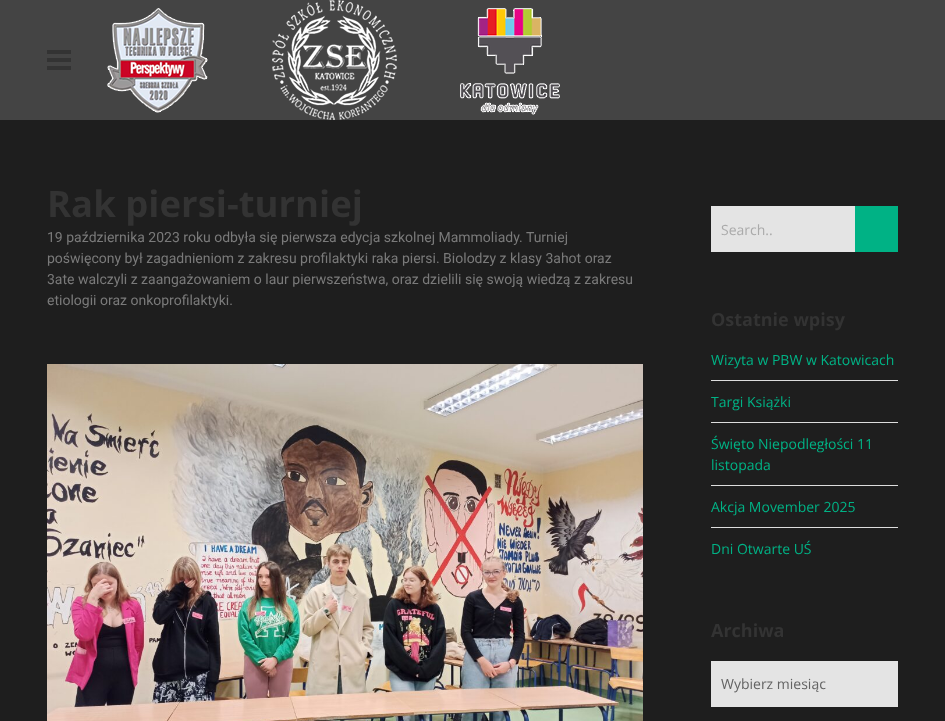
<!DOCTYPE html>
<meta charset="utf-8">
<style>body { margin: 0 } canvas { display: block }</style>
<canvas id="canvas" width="945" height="721"></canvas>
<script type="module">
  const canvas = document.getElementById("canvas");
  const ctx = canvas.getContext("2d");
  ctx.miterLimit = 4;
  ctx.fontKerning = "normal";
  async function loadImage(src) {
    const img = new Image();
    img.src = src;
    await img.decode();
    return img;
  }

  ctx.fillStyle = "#444444";
  ctx.fillRect(0, 0, 945, 721);
  ctx.fillStyle = "#333333";
  ctx.fillRect(47, 50, 24, 4);
  ctx.fillRect(47, 58, 24, 4);
  ctx.fillRect(47, 66, 24, 4);
  ctx.drawImage(await loadImage("img1.png"), 107, 0, 453, 120);
  ctx.fillStyle = "#1e1e1e";
  ctx.fillRect(0, 120, 945, 601);
  ctx.font = "bold 36.5px Open Sans";
  ctx.fillStyle = "#333333";
  ctx.fillText("Rak piersi-turniej", 47, 217);
  ctx.font = "14px Roboto";
  ctx.fillStyle = "#7a7a7a";
  ctx.fillText("19 października 2023 roku odbyła się pierwsza edycja szkolnej Mammoliady. Turniej", 47, 242);
  ctx.fillText("poświęcony był zagadnieniom z zakresu profilaktyki raka piersi. Biolodzy z klasy 3ahot oraz", 47, 263);
  ctx.fillText("3ate walczyli z zaangażowaniem o laur pierwszeństwa, oraz dzielili się swoją wiedzą z zakresu", 47, 284);
  ctx.fillText("etiologii oraz onkoprofilaktyki.", 47, 305);
  ctx.drawImage(await loadImage("img2.png"), 47, 364, 596, 357);
  ctx.fillStyle = "#e4e4e4";
  ctx.fillRect(711, 206, 144, 46);
  ctx.font = "14px Open Sans";
  ctx.fillStyle = "#aaaaaa";
  ctx.fillText("Search..", 721, 235);
  ctx.fillStyle = "#00b285";
  ctx.fillRect(855, 206, 43, 46);
  ctx.font = "bold 18px Open Sans";
  ctx.fillStyle = "#333333";
  ctx.fillText("Ostatnie wpisy", 711, 326);
  ctx.fillStyle = "#dddddd";
  ctx.fillRect(711, 380, 187, 1);
  ctx.font = "14px Open Sans";
  ctx.fillStyle = "#00b285";
  ctx.fillText("Wizyta w PBW w Katowicach", 711, 365);
  ctx.fillStyle = "#dddddd";
  ctx.fillRect(711, 422, 187, 1);
  ctx.fillStyle = "#00b285";
  ctx.fillText("Targi Książki", 711, 407);
  ctx.fillStyle = "#dddddd";
  ctx.fillRect(711, 485, 187, 1);
  ctx.fillStyle = "#00b285";
  ctx.fillText("Święto Niepodległości 11", 711, 449);
  ctx.fillText("listopada", 711, 470);
  ctx.fillStyle = "#dddddd";
  ctx.fillRect(711, 527, 187, 1);
  ctx.fillStyle = "#00b285";
  ctx.fillText("Akcja Movember 2025", 711, 512);
  ctx.fillText("Dni Otwarte UŚ", 711, 554);
  ctx.font = "bold 18px Open Sans";
  ctx.fillStyle = "#333333";
  ctx.fillText("Archiwa", 711, 637);
  ctx.fillStyle = "#e4e4e4";
  ctx.fillRect(711, 661, 187, 46);
  ctx.font = "14px Open Sans";
  ctx.fillStyle = "#636363";
  ctx.fillText("Wybierz miesiąc", 721, 689);
</script>
